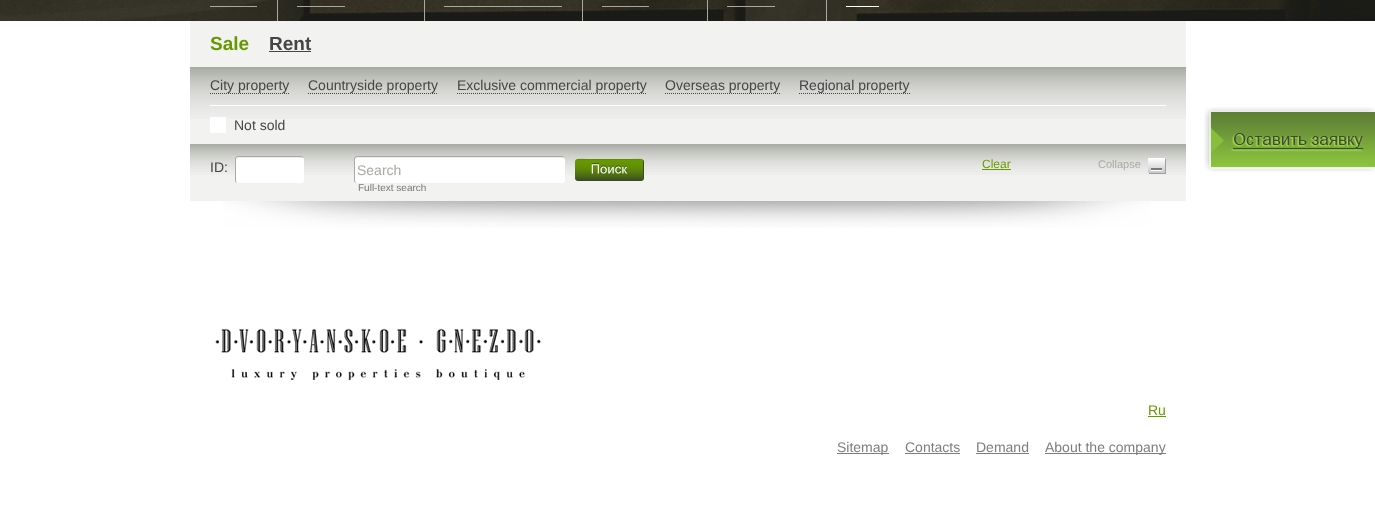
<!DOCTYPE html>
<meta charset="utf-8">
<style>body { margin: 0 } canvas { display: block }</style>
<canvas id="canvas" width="1375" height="517"></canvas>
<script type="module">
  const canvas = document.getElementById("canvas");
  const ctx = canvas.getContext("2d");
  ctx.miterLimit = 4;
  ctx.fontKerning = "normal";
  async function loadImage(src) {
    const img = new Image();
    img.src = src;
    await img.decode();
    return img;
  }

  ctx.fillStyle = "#ffffff";
  ctx.fillRect(0, 0, 1375, 517);
  ctx.drawImage(await loadImage("img1.png"), 0, 0, 1375, 21);
  ctx.fillStyle = "#a7a9a2";
  ctx.fillRect(210, 6, 47, 1);
  ctx.fillRect(277, 0, 1, 21);
  ctx.fillRect(297, 6, 48, 1);
  ctx.fillRect(424, 0, 1, 21);
  ctx.fillRect(444, 6, 118, 1);
  ctx.fillRect(582, 0, 1, 21);
  ctx.fillRect(602, 6, 47, 1);
  ctx.fillRect(707, 0, 1, 21);
  ctx.fillRect(727, 6, 48, 1);
  ctx.fillRect(826, 0, 1, 21);
  ctx.fillStyle = "#ffffff";
  ctx.fillRect(846, 6, 33, 1);
  ctx.fillStyle = "#f2f3f1";
  ctx.fillRect(190, 21, 996, 46);
  ctx.font = "bold 19px Liberation Sans";
  ctx.fillStyle = "#669900";
  ctx.fillText("Sale", 210, 50);
  ctx.fillStyle = "#454545";
  ctx.fillText("Rent", 269, 50);
  ctx.fillRect(269, 51, 42, 1);
  ctx.fillStyle = "#f2f3f1";
  ctx.fillRect(190, 119, 996, 82);
  ctx.drawImage(await loadImage("img2.png"), 190, 67, 996, 52);
  ctx.fillStyle = "#ffffff";
  ctx.fillRect(210, 105, 956, 1);
  ctx.font = "14px Liberation Sans";
  ctx.fillStyle = "#454545";
  ctx.fillText("City property", 210, 90);
  ctx.beginPath();
  ctx.moveTo(210, 93.5);
  ctx.lineTo(289, 93.5);
  ctx.strokeStyle = "#454545";
  ctx.setLineDash([1, 1]);
  ctx.stroke();
  ctx.fillText("Countryside property", 308, 90);
  ctx.beginPath();
  ctx.moveTo(308, 93.5);
  ctx.lineTo(438, 93.5);
  ctx.stroke();
  ctx.fillText("Exclusive commercial property", 457, 90);
  ctx.beginPath();
  ctx.moveTo(457, 93.5);
  ctx.lineTo(646, 93.5);
  ctx.stroke();
  ctx.fillText("Overseas property", 665, 90);
  ctx.beginPath();
  ctx.moveTo(665, 93.5);
  ctx.lineTo(781, 93.5);
  ctx.stroke();
  ctx.fillText("Regional property", 799, 90);
  ctx.beginPath();
  ctx.moveTo(799, 93.5);
  ctx.lineTo(910, 93.5);
  ctx.stroke();
  ctx.fillStyle = "#ffffff";
  ctx.fillRect(210, 117, 16, 16);
  ctx.fillStyle = "#454545";
  ctx.fillText("Not sold", 234, 130);
  ctx.drawImage(await loadImage("img3.png"), 190, 144, 996, 31);
  ctx.fillText("ID:", 210, 172);
  ctx.fillStyle = "#ffffff";
  ctx.beginPath();
  ctx.roundRect(235, 156, 69, 27, 3);
  ctx.fill();
  ctx.fillStyle = "#ececec";
  ctx.beginPath();
  ctx.moveTo(238, 158);
  ctx.lineTo(303, 158);
  ctx.lineTo(304, 160);
  ctx.bezierCurveTo(304, 154, 292, 157, 290, 157);
  ctx.lineTo(248, 157);
  ctx.bezierCurveTo(245, 157, 236, 154, 236, 160);
  ctx.bezierCurveTo(236, 159, 237, 158, 238, 158);
  ctx.closePath();
  ctx.fill();
  ctx.fillStyle = "#a7a9a2";
  ctx.beginPath();
  ctx.moveTo(238, 156);
  ctx.lineTo(301, 156);
  ctx.bezierCurveTo(303, 156, 304, 157, 304, 159);
  ctx.lineTo(304, 180);
  ctx.bezierCurveTo(304, 182, 303, 183, 301, 183);
  ctx.lineTo(238, 183);
  ctx.bezierCurveTo(236, 183, 235, 182, 235, 180);
  ctx.lineTo(235, 159);
  ctx.bezierCurveTo(235, 157, 236, 156, 238, 156);
  ctx.closePath();
  ctx.moveTo(238, 157);
  ctx.lineTo(301, 157);
  ctx.bezierCurveTo(303, 157, 304, 158, 304, 159);
  ctx.lineTo(304, 180);
  ctx.bezierCurveTo(304, 182, 303, 183, 301, 183);
  ctx.lineTo(238, 183);
  ctx.bezierCurveTo(237, 183, 236, 182, 236, 180);
  ctx.lineTo(236, 159);
  ctx.bezierCurveTo(236, 158, 237, 157, 238, 157);
  ctx.closePath();
  ctx.fill("evenodd");
  ctx.fillStyle = "#ffffff";
  ctx.beginPath();
  ctx.roundRect(354, 156, 211, 27, 3);
  ctx.fill();
  ctx.fillStyle = "rgba(0, 0, 0, 0.07)";
  ctx.beginPath();
  ctx.moveTo(357, 158);
  ctx.lineTo(562, 158);
  ctx.bezierCurveTo(564, 158, 565, 159, 565, 160);
  ctx.bezierCurveTo(565, 158, 564, 157, 562, 157);
  ctx.lineTo(357, 157);
  ctx.bezierCurveTo(355, 157, 355, 159, 355, 160);
  ctx.bezierCurveTo(355, 159, 356, 158, 357, 158);
  ctx.closePath();
  ctx.fill();
  ctx.fillStyle = "#a7a9a2";
  ctx.beginPath();
  ctx.moveTo(357, 156);
  ctx.lineTo(562, 156);
  ctx.bezierCurveTo(564, 156, 565, 157, 565, 159);
  ctx.lineTo(565, 180);
  ctx.bezierCurveTo(565, 182, 564, 183, 562, 183);
  ctx.lineTo(357, 183);
  ctx.bezierCurveTo(355, 183, 354, 182, 354, 180);
  ctx.lineTo(354, 159);
  ctx.bezierCurveTo(354, 157, 355, 156, 357, 156);
  ctx.closePath();
  ctx.moveTo(357, 157);
  ctx.lineTo(562, 157);
  ctx.bezierCurveTo(564, 157, 565, 158, 565, 159);
  ctx.lineTo(565, 180);
  ctx.bezierCurveTo(565, 182, 564, 183, 562, 183);
  ctx.lineTo(357, 183);
  ctx.bezierCurveTo(356, 183, 355, 182, 355, 180);
  ctx.lineTo(355, 159);
  ctx.bezierCurveTo(355, 158, 356, 157, 357, 157);
  ctx.closePath();
  ctx.fill("evenodd");
  ctx.fillText("Search", 357, 175);
  ctx.drawImage(await loadImage("img4.png"), 575, 159, 69, 22);
  ctx.fillStyle = "rgba(0, 0, 0, 0.07)";
  ctx.beginPath();
  ctx.moveTo(578, 160);
  ctx.lineTo(641, 160);
  ctx.bezierCurveTo(643, 160, 644, 161, 644, 163);
  ctx.bezierCurveTo(644, 156, 635, 159, 630, 159);
  ctx.lineTo(588, 159);
  ctx.bezierCurveTo(584, 159, 575, 156, 575, 163);
  ctx.bezierCurveTo(575, 161, 576, 160, 578, 160);
  ctx.closePath();
  ctx.fill();
  ctx.font = "12px Liberation Sans";
  ctx.fillStyle = "#669900";
  ctx.fillText("Clear", 982, 168);
  ctx.fillRect(982, 169, 29, 1);
  ctx.font = "11px Liberation Sans";
  ctx.fillStyle = "#a7a9a2";
  ctx.fillText("Collapse", 1098, 168);
  ctx.drawImage(await loadImage("img5.png"), 1148, 158, 18, 16);
  ctx.font = "10px Liberation Sans";
  ctx.fillStyle = "#767870";
  ctx.fillText("Full-text search", 358, 191);
  ctx.drawImage(await loadImage("img6.png"), 223, 201, 928, 27);
  ctx.drawImage(await loadImage("img7.png"), 215, 328, 326, 52);
  ctx.font = "14px Liberation Sans";
  ctx.fillStyle = "#669900";
  ctx.fillText("Ru", 1148, 415);
  ctx.fillRect(1148, 416, 18, 1);
  ctx.fillStyle = "#7d7d7d";
  ctx.fillRect(837, 453, 52, 1);
  ctx.fillText("Sitemap", 837, 452);
  ctx.fillText("Contacts", 905, 452);
  ctx.fillRect(905, 453, 55, 1);
  ctx.fillText("Demand", 976, 452);
  ctx.fillRect(976, 453, 53, 1);
  ctx.fillRect(1045, 453, 121, 1);
  ctx.fillText("About the company", 1045, 452);
  ctx.drawImage(await loadImage("img8.png"), 1204, 107, 171, 65);
</script>
